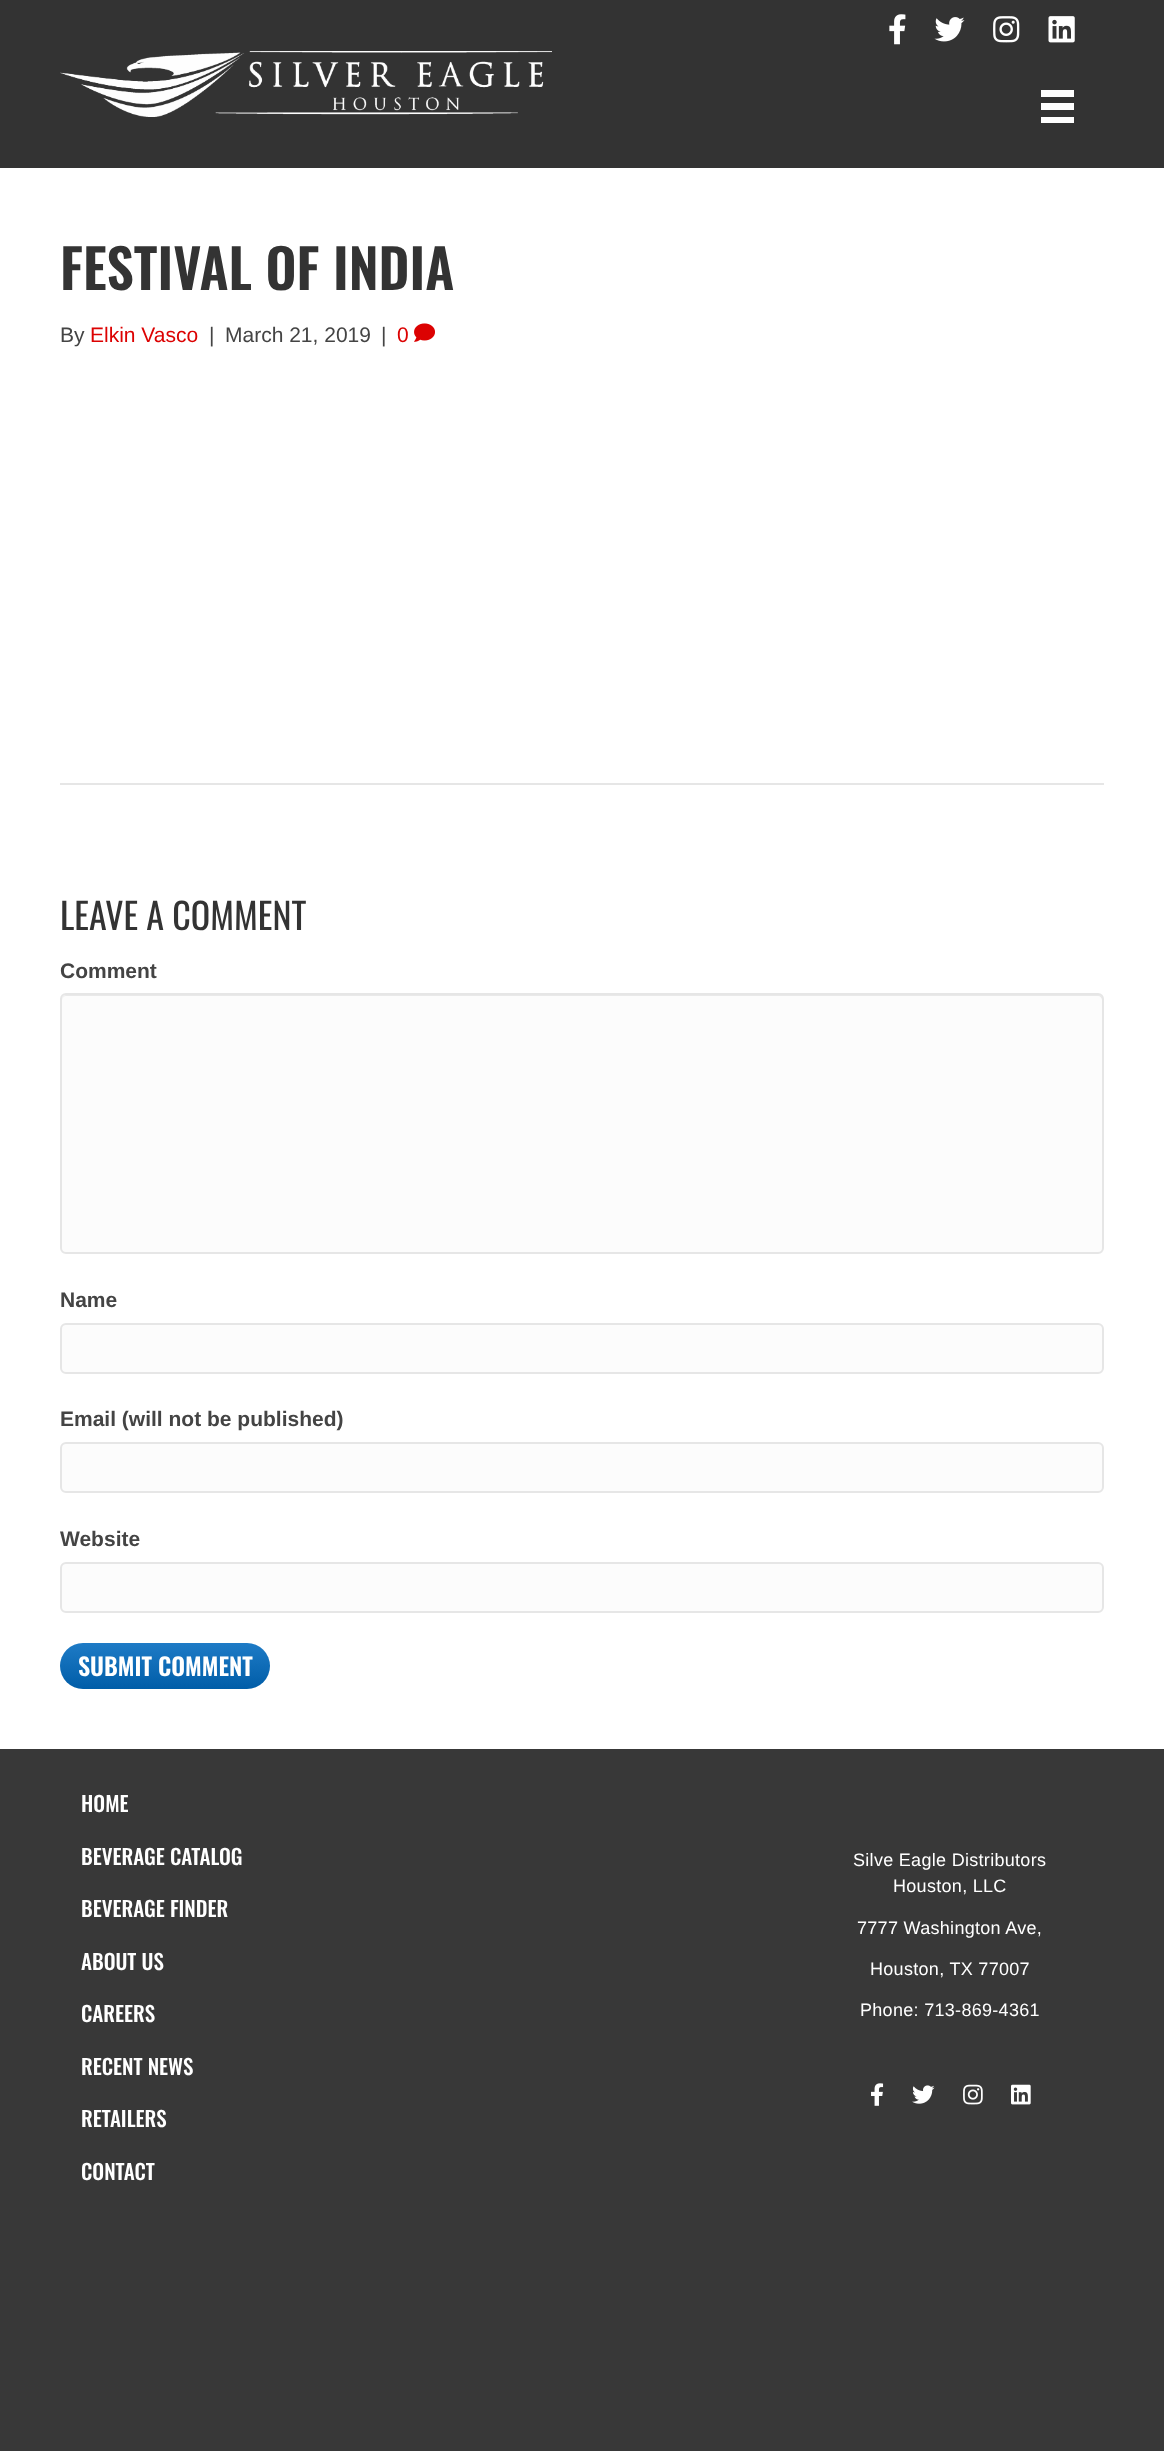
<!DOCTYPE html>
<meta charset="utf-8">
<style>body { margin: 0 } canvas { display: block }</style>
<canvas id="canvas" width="1164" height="2451"></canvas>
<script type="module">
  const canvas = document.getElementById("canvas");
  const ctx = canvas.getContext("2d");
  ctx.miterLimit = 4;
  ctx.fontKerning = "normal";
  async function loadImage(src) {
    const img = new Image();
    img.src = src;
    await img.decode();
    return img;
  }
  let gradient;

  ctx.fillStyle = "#ffffff";
  ctx.fillRect(0, 0, 1164, 2451);
  ctx.fillStyle = "#333333";
  ctx.fillRect(0, 0, 1164, 168);
  ctx.drawImage(await loadImage("img1.png"), 60, 51, 492, 66);
  ctx.drawImage(await loadImage("img2.png"), 889, 14, 17, 31);
  ctx.drawImage(await loadImage("img3.png"), 934, 17, 31, 25);
  ctx.drawImage(await loadImage("img4.png"), 993, 16, 27, 27);
  ctx.drawImage(await loadImage("img5.png"), 1048, 16, 27, 27);
  ctx.fillStyle = "#ffffff";
  ctx.fillRect(1041, 90, 33, 7);
  ctx.fillRect(1041, 103, 33, 7);
  ctx.fillRect(1041, 117, 33, 6);
  ctx.font = "600 54px Oswald";
  ctx.fillStyle = "#333333";
  ctx.fillText("FESTIVAL OF INDIA", 60, 290);
  ctx.font = "21px Liberation Sans";
  ctx.fillStyle = "#444444";
  ctx.fillText("By", 60, 342);
  ctx.fillStyle = "#dc0202";
  ctx.fillText("Elkin Vasco", 90, 342);
  ctx.fillStyle = "#444444";
  ctx.fillText("|", 209, 342);
  ctx.fillText("March 21, 2019", 225, 342);
  ctx.fillText("|", 381, 342);
  ctx.fillStyle = "#dc0202";
  ctx.fillText("0", 397, 342);
  ctx.drawImage(await loadImage("img6.png"), 414, 323, 21, 19);
  ctx.fillStyle = "#e6e6e6";
  ctx.fillRect(60, 783, 1044, 2);
  ctx.font = "36px Oswald";
  ctx.fillStyle = "#333333";
  ctx.fillText("LEAVE A COMMENT", 60, 930);
  ctx.font = "bold 21px Liberation Sans";
  ctx.fillStyle = "#444444";
  ctx.fillText("Comment", 60, 978);
  ctx.fillStyle = "#fcfcfc";
  ctx.beginPath();
  ctx.roundRect(60, 993, 1044, 261, 6);
  ctx.fill();
  ctx.fillStyle = "#e9e9e9";
  ctx.beginPath();
  ctx.moveTo(66, 996);
  ctx.lineTo(1098, 996);
  ctx.bezierCurveTo(1100, 996, 1102, 998, 1102, 1000);
  ctx.lineTo(1102, 1251);
  ctx.bezierCurveTo(1103, 1250, 1103, 1249, 1103, 1248);
  ctx.lineTo(1103, 1000);
  ctx.bezierCurveTo(1103, 997, 1101, 995, 1098, 995);
  ctx.lineTo(67, 995);
  ctx.bezierCurveTo(64, 995, 62, 997, 62, 1000);
  ctx.bezierCurveTo(62, 998, 64, 996, 66, 996);
  ctx.closePath();
  ctx.fill();
  ctx.beginPath();
  ctx.roundRect(61, 994, 1042, 259, 5);
  ctx.strokeStyle = "#e6e6e6";
  ctx.lineWidth = 2;
  ctx.stroke();
  ctx.fillStyle = "#444444";
  ctx.fillText("Name", 60, 1307);
  ctx.fillStyle = "#fcfcfc";
  ctx.beginPath();
  ctx.roundRect(61, 1324, 1042, 49, 5);
  ctx.fill();
  ctx.stroke();
  ctx.fillStyle = "#444444";
  ctx.fillText("Email (will not be published)", 60, 1426);
  ctx.fillStyle = "#fcfcfc";
  ctx.beginPath();
  ctx.roundRect(61, 1443, 1042, 49, 5);
  ctx.fill();
  ctx.stroke();
  ctx.fillStyle = "#444444";
  ctx.fillText("Website", 60, 1546);
  ctx.fillStyle = "#fcfcfc";
  ctx.beginPath();
  ctx.roundRect(61, 1563, 1042, 49, 5);
  ctx.fill();
  ctx.stroke();
  gradient = ctx.createLinearGradient(165, 1643, 165, 1689);
  gradient.addColorStop(0, "#1e7bc6");
  gradient.addColorStop(1, "#005da8");
  ctx.fillStyle = gradient;
  ctx.beginPath();
  ctx.roundRect(60, 1643, 210, 46, 23);
  ctx.fill();
  ctx.font = "600 24px Oswald";
  ctx.fillStyle = "#ffffff";
  ctx.fillText("SUBMIT COMMENT", 78, 1676);
  ctx.fillStyle = "#383838";
  ctx.fillRect(0, 1749, 1164, 702);
  ctx.font = "500 21px Oswald";
  ctx.fillStyle = "#ffffff";
  ctx.fillText("HOME", 81, 1812);
  ctx.fillText("BEVERAGE CATALOG", 81, 1865);
  ctx.fillText("BEVERAGE FINDER", 81, 1917);
  ctx.fillText("ABOUT US", 81, 1970);
  ctx.fillText("CAREERS", 81, 2022);
  ctx.fillText("RECENT NEWS", 81, 2075);
  ctx.fillText("RETAILERS", 81, 2127);
  ctx.fillText("CONTACT", 81, 2180);
  ctx.letterSpacing = "0.3px";
  ctx.font = "18px Liberation Sans";
  ctx.fillText("Silve Eagle Distributors", 853, 1866);
  ctx.fillText("Houston, LLC", 893, 1892);
  ctx.fillText("7777 Washington Ave,", 857, 1934);
  ctx.fillText("Houston, TX 77007", 870, 1975);
  ctx.fillText("Phone: 713-869-4361", 860, 2016);
  ctx.drawImage(await loadImage("img7.png"), 871, 2083, 13, 23);
  ctx.drawImage(await loadImage("img8.png"), 912, 2085, 23, 19);
  ctx.drawImage(await loadImage("img9.png"), 963, 2084, 20, 21);
  ctx.drawImage(await loadImage("img10.png"), 1011, 2084, 20, 21);
</script>
